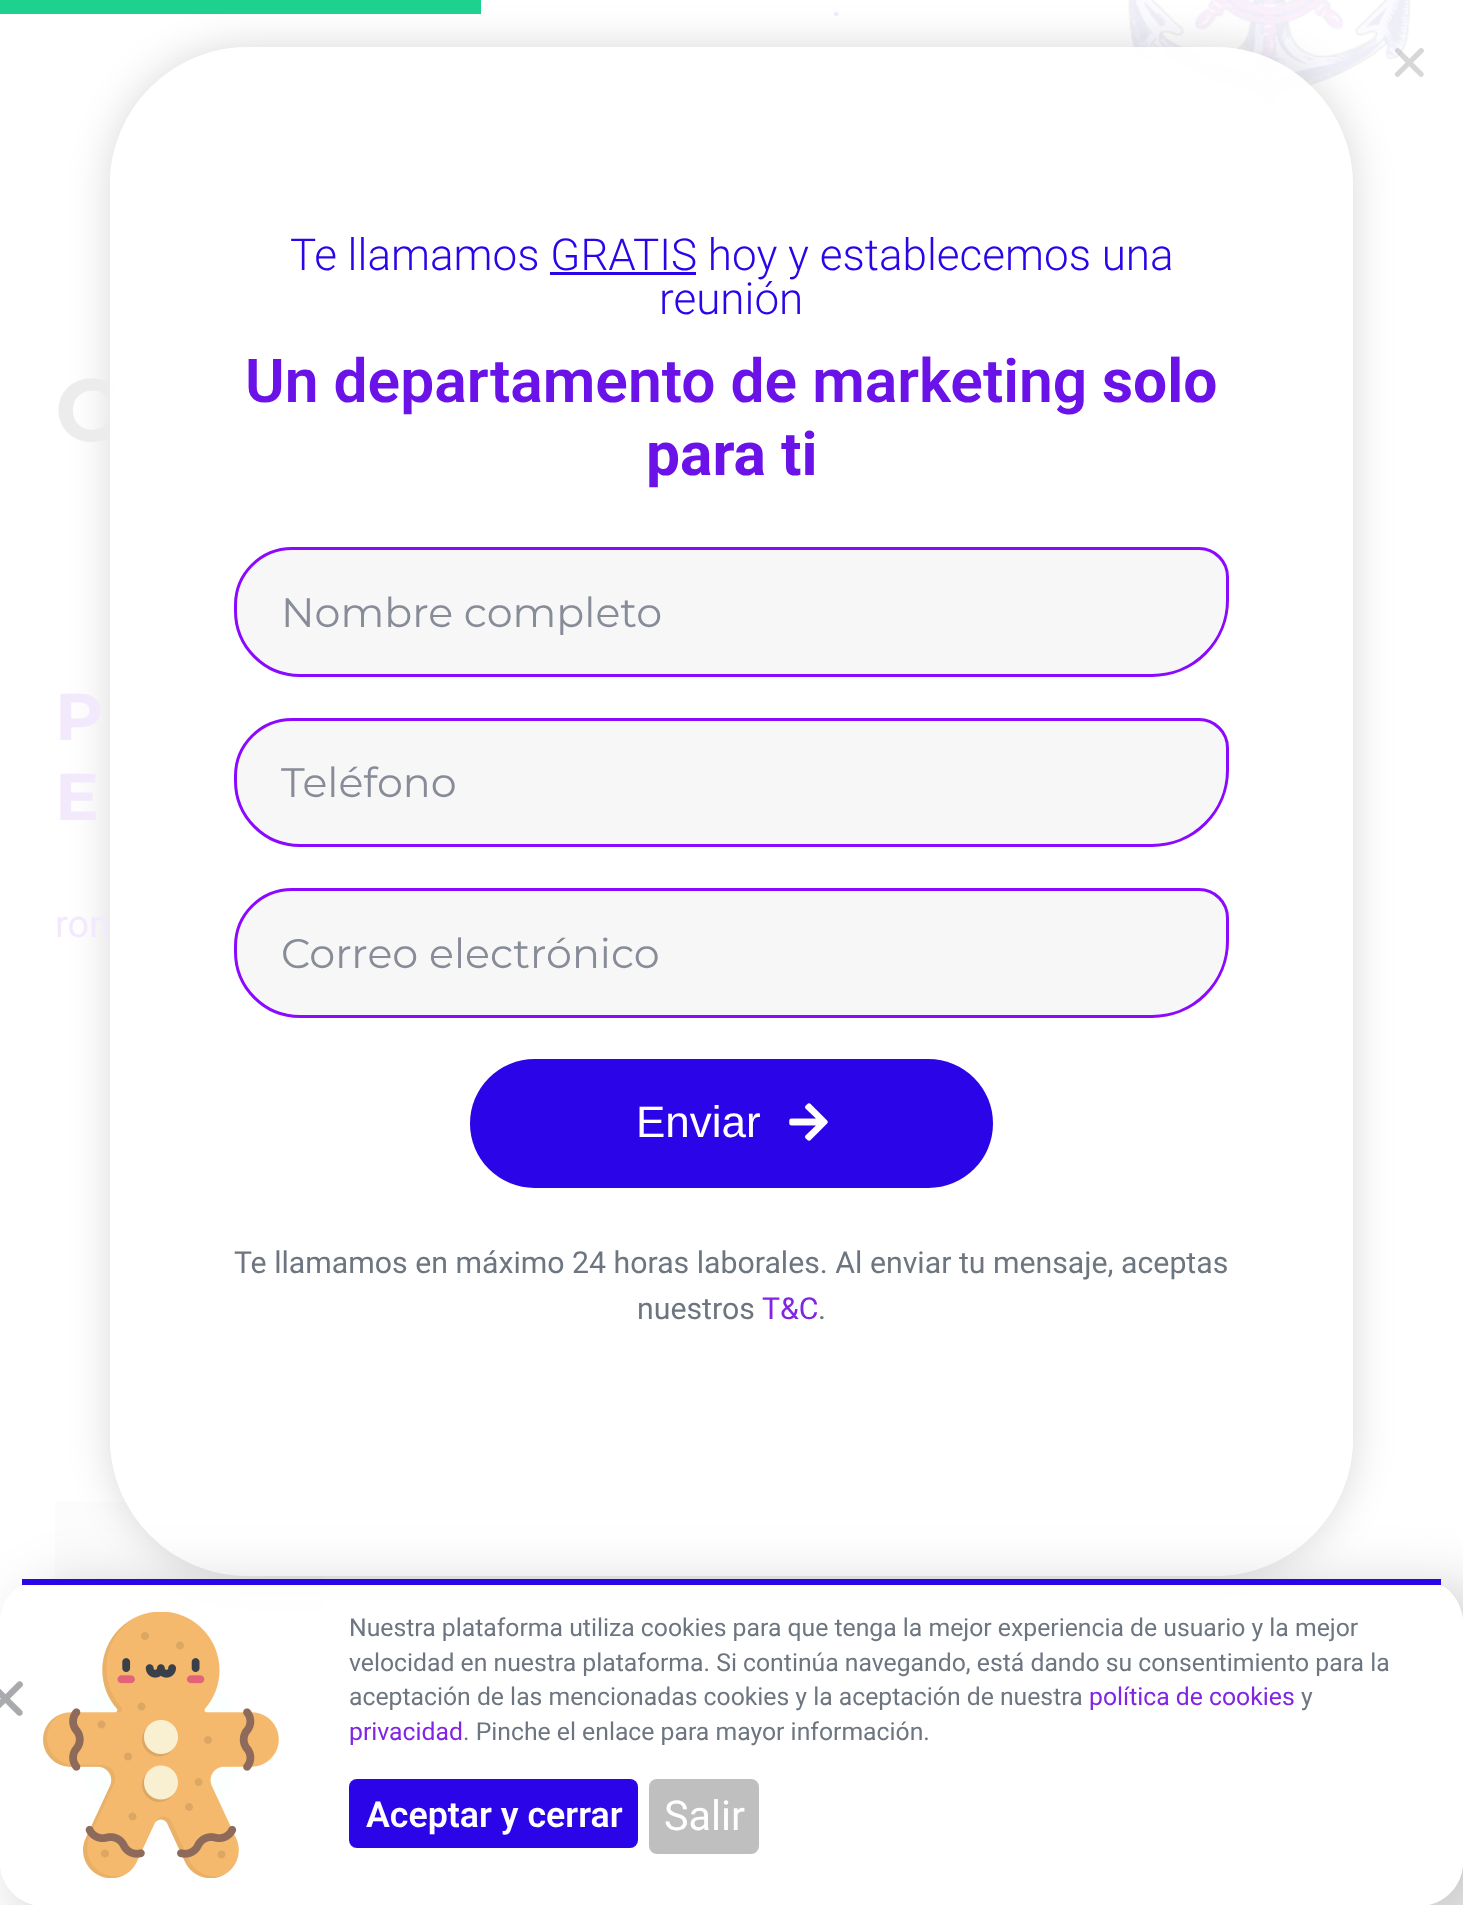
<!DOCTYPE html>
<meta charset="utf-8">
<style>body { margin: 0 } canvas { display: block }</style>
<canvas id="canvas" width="1463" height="1905"></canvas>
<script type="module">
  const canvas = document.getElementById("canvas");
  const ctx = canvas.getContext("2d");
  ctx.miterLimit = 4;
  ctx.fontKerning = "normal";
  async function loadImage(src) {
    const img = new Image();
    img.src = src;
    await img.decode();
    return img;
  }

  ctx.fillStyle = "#ffffff";
  ctx.fillRect(0, 0, 1463, 1905);
  ctx.drawImage(await loadImage("img1.png"), 1128, 0, 284, 107);
  ctx.fillStyle = "#fcfcfc";
  ctx.fillRect(55, 1502, 270, 121);
  ctx.save();
  ctx.beginPath();
  ctx.moveTo(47, 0);
  ctx.lineTo(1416, 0);
  ctx.lineTo(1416, 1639);
  ctx.lineTo(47, 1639);
  ctx.closePath();
  ctx.moveTo(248, 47);
  ctx.lineTo(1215, 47);
  ctx.bezierCurveTo(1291, 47, 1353, 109, 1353, 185);
  ctx.lineTo(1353, 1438);
  ctx.bezierCurveTo(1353, 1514, 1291, 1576, 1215, 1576);
  ctx.lineTo(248, 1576);
  ctx.bezierCurveTo(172, 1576, 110, 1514, 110, 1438);
  ctx.lineTo(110, 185);
  ctx.bezierCurveTo(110, 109, 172, 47, 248, 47);
  ctx.closePath();
  ctx.clip("evenodd");
  ctx.fillStyle = "rgba(0, 0, 0, 0.15)";
  ctx.filter = "blur(20.5px)";
  ctx.beginPath();
  ctx.roundRect(110, 47, 1243, 1529, 138);
  ctx.fill();
  ctx.filter = "none";
  ctx.restore();
  ctx.fillStyle = "#1fd18e";
  ctx.fillRect(0, 0, 481, 14);
  ctx.font = "41.25px Roboto";
  ctx.fillStyle = "#f3e9fc";
  ctx.fillText(".", 831, 16);
  ctx.font = "bold 88px Montserrat";
  ctx.fillStyle = "#ececed";
  ctx.fillText("C", 55, 441);
  ctx.font = "bold 66px Montserrat";
  ctx.fillStyle = "#f3e9fc";
  ctx.fillText("P", 55, 740);
  ctx.fillText("E", 55, 820);
  ctx.font = "38px Roboto";
  ctx.fillText("ron", 55, 937);
  ctx.drawImage(await loadImage("img2.png"), 1394, 48, 30, 29);
  ctx.fillStyle = "rgba(255, 255, 255, 0.91)";
  ctx.beginPath();
  ctx.roundRect(110, 47, 1243, 1529, 138);
  ctx.fill();
  ctx.font = "300 44px Roboto";
  ctx.fillStyle = "#2b04e8";
  ctx.fillText("Te llamamos GRATIS hoy y establecemos una", 290, 270);
  ctx.fillRect(550, 272, 146, 3);
  ctx.fillText("reunión", 659, 314);
  ctx.font = "600 60.5px Roboto";
  ctx.fillStyle = "#6a12e8";
  ctx.fillText("Un departamento de marketing", 245, 402);
  ctx.font = "bold 60.5px Roboto";
  ctx.fillText("solo", 1102, 402);
  ctx.fillText("para ti", 646, 475);
  ctx.fillStyle = "#f7f7f7";
  ctx.beginPath();
  ctx.roundRect(235.5, 548.5, 992, 127, [56.5, 28.5, 75.5, 64.5]);
  ctx.fill();
  ctx.strokeStyle = "#8b09ff";
  ctx.lineWidth = 3;
  ctx.stroke();
  ctx.font = "41.25px Montserrat";
  ctx.fillStyle = "#878c98";
  ctx.fillText("Nombre completo", 281, 627);
  ctx.fillStyle = "#f7f7f7";
  ctx.beginPath();
  ctx.roundRect(235.5, 719.5, 992, 126, [56.5, 28.5, 75.5, 64.5]);
  ctx.fill();
  ctx.stroke();
  ctx.fillStyle = "#878c98";
  ctx.fillText("Teléfono", 281, 797);
  ctx.fillStyle = "#f7f7f7";
  ctx.beginPath();
  ctx.roundRect(235.5, 889.5, 992, 127, [56.5, 28.5, 75.5, 64.5]);
  ctx.fill();
  ctx.stroke();
  ctx.fillStyle = "#878c98";
  ctx.fillText("Correo electrónico", 281, 968);
  ctx.fillStyle = "#2b04e8";
  ctx.beginPath();
  ctx.roundRect(470, 1059, 523, 129, 64.5);
  ctx.fill();
  ctx.font = "44px Liberation Sans";
  ctx.fillStyle = "#ffffff";
  ctx.fillText("Enviar", 636, 1137);
  ctx.drawImage(await loadImage("img3.png"), 789, 1103, 39, 38);
  ctx.font = "30.25px Roboto";
  ctx.fillStyle = "#6d7680";
  ctx.fillText("Te llamamos en máximo 24 horas laborales. Al enviar tu mensaje, aceptas", 234, 1273);
  ctx.fillText("nuestros", 637, 1319);
  ctx.fillStyle = "#8224e3";
  ctx.fillText("T&C", 762, 1319);
  ctx.fillStyle = "#6d7680";
  ctx.fillText(".", 818, 1319);
  ctx.fillStyle = "#e9fbf0";
  ctx.beginPath();
  ctx.arc(159.5, 1746.5, 82.5, 0, Math.PI * 2);
  ctx.fill();
  ctx.save();
  ctx.beginPath();
  ctx.moveTo(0, 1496);
  ctx.lineTo(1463, 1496);
  ctx.lineTo(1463, 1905);
  ctx.lineTo(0, 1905);
  ctx.closePath();
  ctx.moveTo(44, 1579);
  ctx.lineTo(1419, 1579);
  ctx.bezierCurveTo(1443.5, 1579, 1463, 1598.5, 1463, 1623);
  ctx.lineTo(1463, 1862);
  ctx.bezierCurveTo(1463, 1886.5, 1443.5, 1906, 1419, 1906);
  ctx.lineTo(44, 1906);
  ctx.bezierCurveTo(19.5, 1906, 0, 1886.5, 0, 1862);
  ctx.lineTo(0, 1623);
  ctx.bezierCurveTo(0, 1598.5, 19.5, 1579, 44, 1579);
  ctx.closePath();
  ctx.clip("evenodd");
  ctx.fillStyle = "rgba(0, 0, 0, 0.2)";
  ctx.filter = "blur(31.5px)";
  ctx.beginPath();
  ctx.roundRect(22, 1592, 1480, 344, 52);
  ctx.fill();
  ctx.filter = "none";
  ctx.restore();
  ctx.fillStyle = "rgba(255, 255, 255, 0.82)";
  ctx.beginPath();
  ctx.moveTo(44, 1584);
  ctx.lineTo(1419, 1584);
  ctx.bezierCurveTo(1443, 1584, 1463, 1601, 1463, 1622);
  ctx.lineTo(1463, 1862);
  ctx.bezierCurveTo(1463, 1886, 1443, 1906, 1419, 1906);
  ctx.lineTo(44, 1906);
  ctx.bezierCurveTo(20, 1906, 0, 1886, 0, 1862);
  ctx.lineTo(0, 1622);
  ctx.bezierCurveTo(0, 1601, 20, 1584, 44, 1584);
  ctx.closePath();
  ctx.fill();
  ctx.fillStyle = "#2b04e8";
  ctx.fillRect(22, 1579, 1419, 6);
  ctx.drawImage(await loadImage("img4.png"), 0, 1681, 23, 35);
  ctx.drawImage(await loadImage("img5.png"), 43, 1612, 236, 266);
  ctx.font = "24.75px Roboto";
  ctx.fillStyle = "#6d7680";
  ctx.fillText("Nuestra plataforma utiliza cookies para que tenga la mejor experiencia de usuario y la mejor", 349, 1636);
  ctx.fillText("velocidad en nuestra plataforma. Si continúa navegando, está dando su consentimiento para la", 349, 1671);
  ctx.fillText("aceptación de las mencionadas cookies y la aceptación de nuestra", 349, 1705);
  ctx.fillStyle = "#8224e3";
  ctx.fillText("política de cookies", 1089, 1705);
  ctx.fillStyle = "#6d7680";
  ctx.fillText("y", 1301, 1705);
  ctx.fillStyle = "#8224e3";
  ctx.fillText("privacidad", 349, 1740);
  ctx.fillStyle = "#6d7680";
  ctx.fillText(". Pinche el enlace para mayor información.", 463, 1740);
  ctx.fillStyle = "#2b04e8";
  ctx.beginPath();
  ctx.roundRect(349, 1779, 289, 69, 8);
  ctx.fill();
  ctx.font = "600 35.75px Roboto";
  ctx.fillStyle = "#ffffff";
  ctx.fillText("Aceptar y cerrar", 366, 1827);
  ctx.fillStyle = "#bfbfbf";
  ctx.beginPath();
  ctx.roundRect(649, 1779, 110, 75, 8);
  ctx.fill();
  ctx.font = "41.25px Roboto";
  ctx.fillStyle = "#ffffff";
  ctx.fillText("Salir", 664, 1830);
</script>
